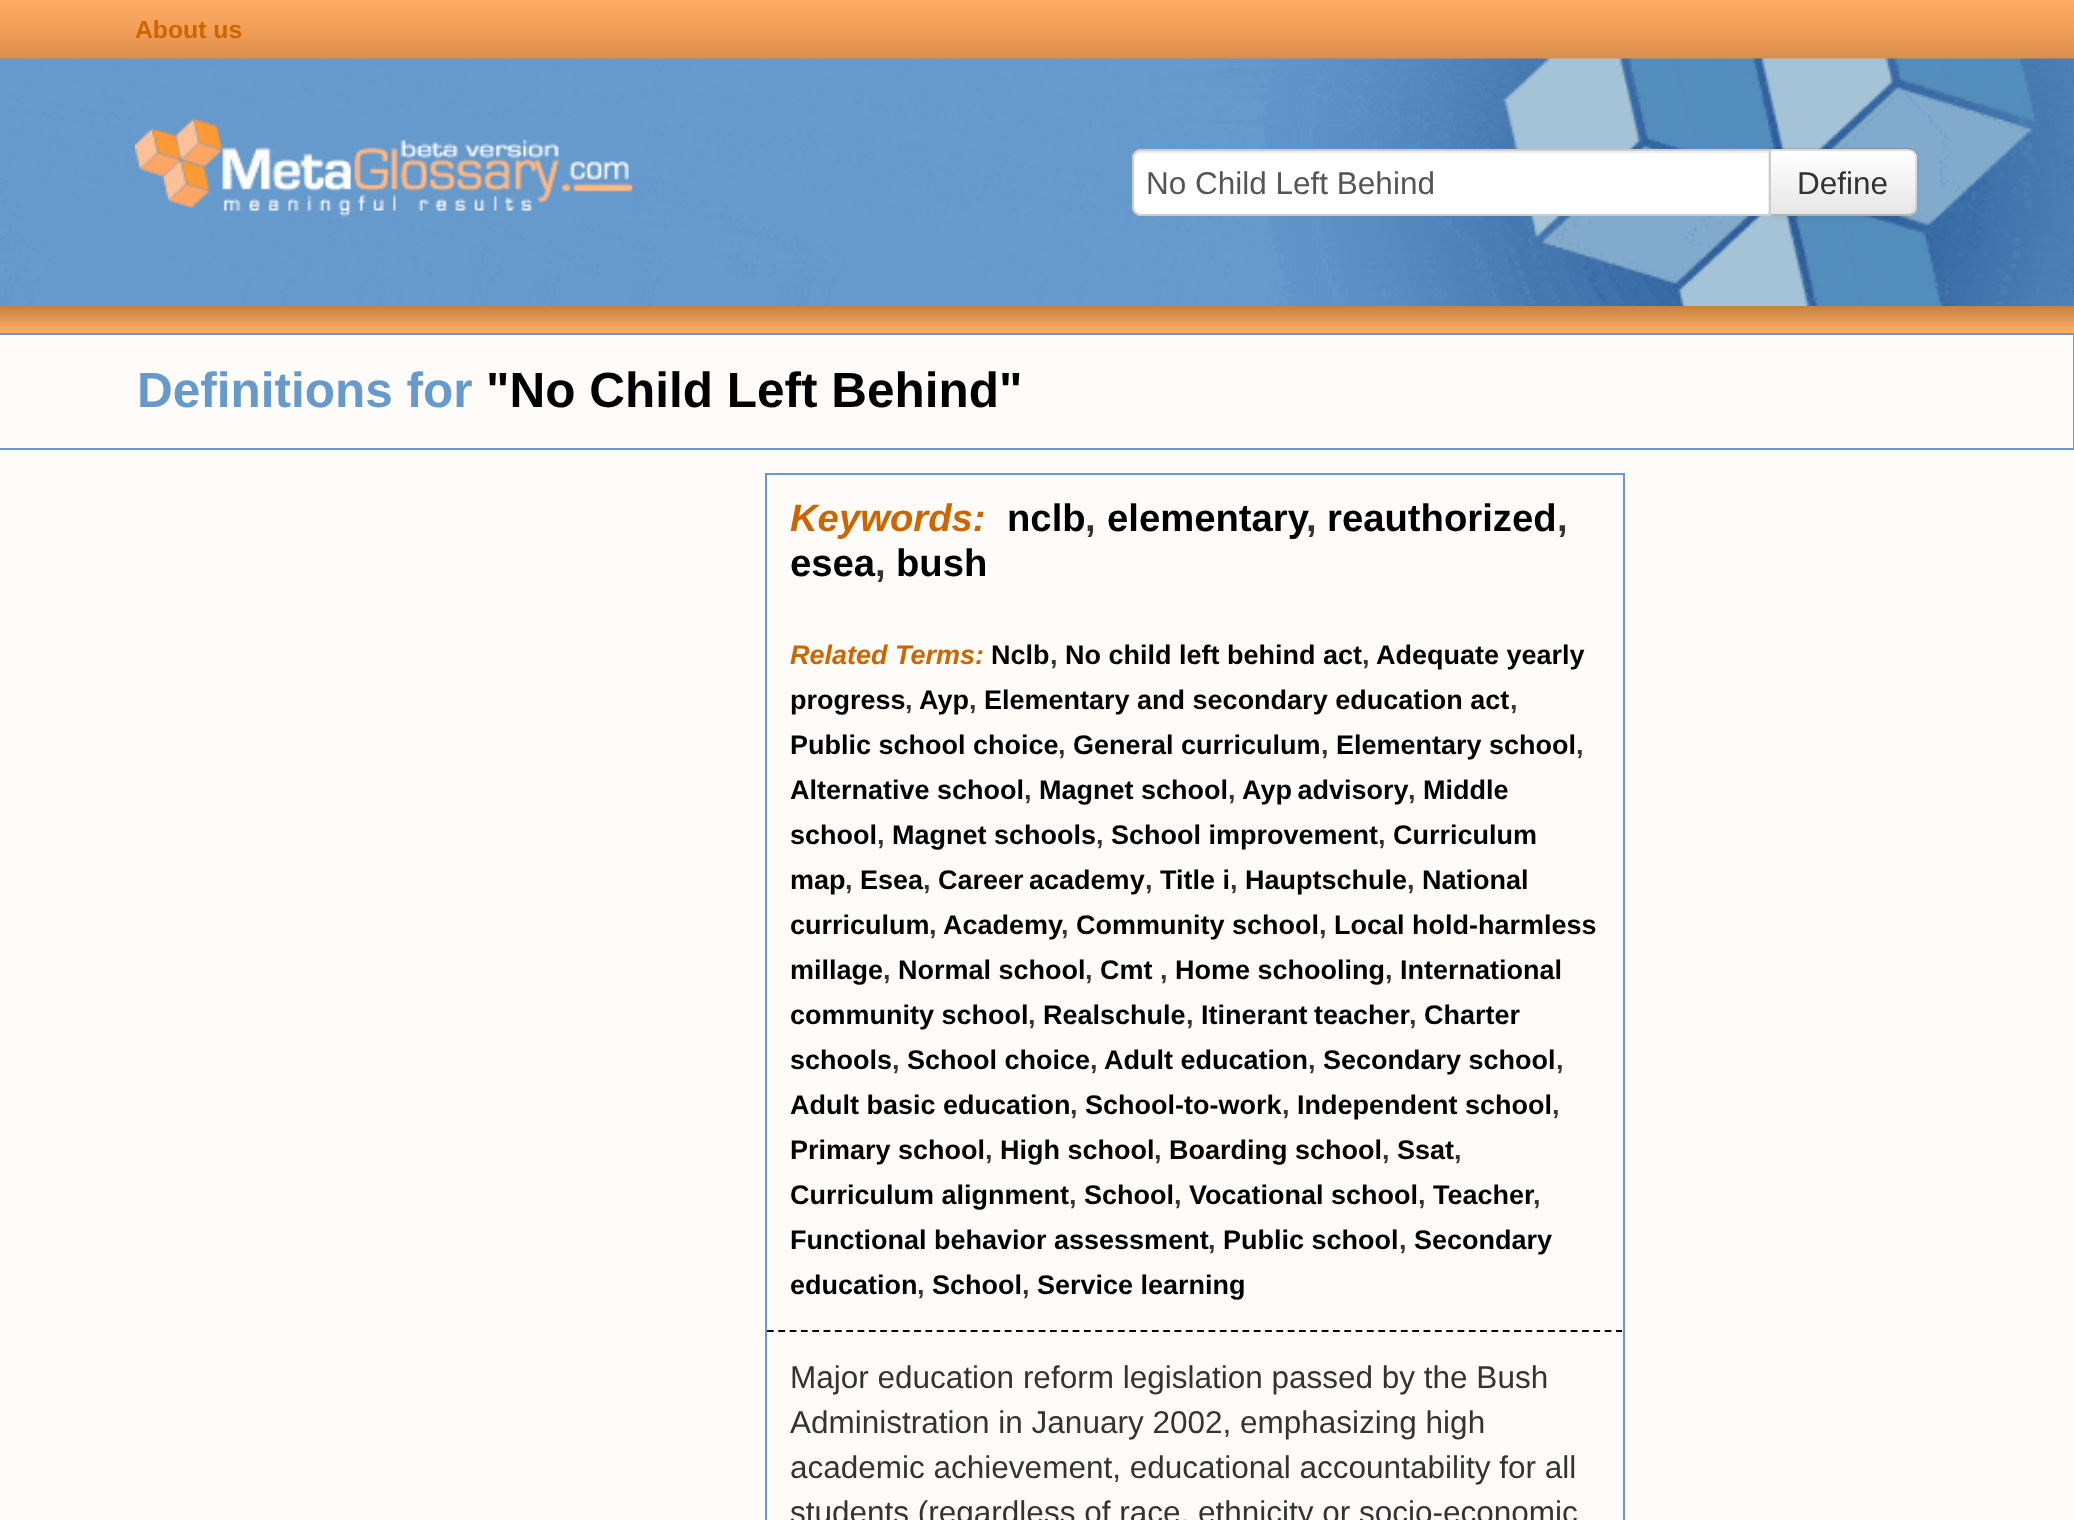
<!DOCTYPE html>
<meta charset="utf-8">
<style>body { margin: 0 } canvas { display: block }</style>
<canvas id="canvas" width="2074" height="1520"></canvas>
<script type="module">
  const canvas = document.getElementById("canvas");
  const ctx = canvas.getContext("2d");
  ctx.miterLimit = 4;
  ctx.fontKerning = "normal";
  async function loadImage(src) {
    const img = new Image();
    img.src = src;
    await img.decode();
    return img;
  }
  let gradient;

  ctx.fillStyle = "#fffbf9";
  ctx.fillRect(0, 0, 2074, 1520);
  gradient = ctx.createLinearGradient(1015, 0, 1015, 59);
  gradient.addColorStop(0, "#ffac65");
  gradient.addColorStop(0.5, "#f19e57");
  gradient.addColorStop(1, "#d98e4c");
  ctx.fillStyle = gradient;
  ctx.fillRect(0, 0, 2074, 59);
  ctx.font = "bold 24.75px Liberation Sans";
  ctx.fillStyle = "#cc6600";
  ctx.fillText("About us", 135, 38);
  ctx.drawImage(await loadImage("img1.png"), 0, 58, 2074, 248);
  ctx.drawImage(await loadImage("img2.png"), 135, 118, 498, 99);
  ctx.fillStyle = "rgba(0, 0, 0, 0.05)";
  ctx.filter = "blur(2px)";
  ctx.beginPath();
  ctx.roundRect(1769, 151, 148, 67, 9);
  ctx.fill();
  ctx.filter = "none";
  ctx.fillStyle = "#f5f5f5";
  ctx.beginPath();
  ctx.roundRect(1769, 149, 148, 67, [0, 9, 9, 0]);
  ctx.fill();
  ctx.save();
  ctx.beginPath();
  ctx.roundRect(1769, 149, 148, 67, [0, 9, 9, 0]);
  ctx.clip();
  gradient = ctx.createLinearGradient(1843, 151, 1843, 214);
  gradient.addColorStop(0, "#ffffff");
  gradient.addColorStop(1, "#e6e6e6");
  ctx.fillStyle = gradient;
  ctx.fillRect(1771, 151, 146, 63);
  ctx.restore();
  ctx.fillStyle = "rgba(0, 0, 0, 0.1)";
  ctx.beginPath();
  ctx.moveTo(1771, 151);
  ctx.lineTo(1768, 148);
  ctx.lineTo(1911, 148);
  ctx.lineTo(1914, 151);
  ctx.lineTo(1913, 153);
  ctx.bezierCurveTo(1912, 152, 1910, 151, 1908, 151);
  ctx.closePath();
  ctx.fill();
  ctx.beginPath();
  ctx.moveTo(1917, 207);
  ctx.lineTo(1917, 158);
  ctx.bezierCurveTo(1917, 156, 1916, 153, 1914, 151);
  ctx.lineTo(1913, 153);
  ctx.bezierCurveTo(1914, 154, 1915, 156, 1915, 158);
  ctx.lineTo(1915, 207);
  ctx.bezierCurveTo(1915, 209, 1914, 211, 1913, 212);
  ctx.lineTo(1914, 213);
  ctx.bezierCurveTo(1916, 212, 1917, 210, 1917, 207);
  ctx.closePath();
  ctx.fill();
  ctx.fillStyle = "#b3b3b3";
  ctx.beginPath();
  ctx.moveTo(1768, 216);
  ctx.lineTo(1908, 216);
  ctx.bezierCurveTo(1910, 216, 1913, 215, 1914, 213);
  ctx.lineTo(1913, 212);
  ctx.bezierCurveTo(1912, 213, 1910, 214, 1908, 214);
  ctx.lineTo(1771, 214);
  ctx.closePath();
  ctx.fill();
  ctx.fillStyle = "rgba(0, 0, 0, 0.1)";
  ctx.beginPath();
  ctx.moveTo(1771, 151);
  ctx.lineTo(1768, 148);
  ctx.lineTo(1768, 216);
  ctx.lineTo(1771, 214);
  ctx.closePath();
  ctx.fill();
  ctx.fillStyle = "#ffffff";
  ctx.beginPath();
  ctx.roundRect(1132, 149, 639, 67, [9, 0, 0, 9]);
  ctx.fill();
  ctx.fillStyle = "#ececec";
  ctx.beginPath();
  ctx.moveTo(1141, 153);
  ctx.lineTo(1768, 153);
  ctx.lineTo(1768, 214);
  ctx.lineTo(1769, 214);
  ctx.lineTo(1769, 151);
  ctx.lineTo(1141, 151);
  ctx.bezierCurveTo(1136, 151, 1134, 156, 1134, 160);
  ctx.bezierCurveTo(1134, 156, 1137, 153, 1141, 153);
  ctx.closePath();
  ctx.fill();
  ctx.beginPath();
  ctx.roundRect(1133, 150, 637, 65, [8, 0, 0, 8]);
  ctx.strokeStyle = "#cccccc";
  ctx.lineWidth = 2;
  ctx.stroke();
  ctx.font = "31.5px Liberation Sans";
  ctx.fillStyle = "#555555";
  ctx.fillText("No Child Left Behind", 1146, 194);
  ctx.fillStyle = "#333333";
  ctx.fillText("Define", 1797, 194);
  gradient = ctx.createLinearGradient(1015, 306, 1015, 333);
  gradient.addColorStop(0, "#c58340");
  gradient.addColorStop(1, "#ffad66");
  ctx.fillStyle = gradient;
  ctx.fillRect(0, 306, 2074, 27);
  ctx.strokeStyle = "#6699cc";
  ctx.strokeRect(-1, 334, 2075, 115);
  ctx.font = "bold 49.5px Liberation Sans";
  ctx.fillStyle = "#6699cc";
  ctx.fillText("Definitions for", 137, 407);
  ctx.fillStyle = "#000000";
  ctx.fillText("\"No Child Left Behind\"", 486, 407);
  ctx.strokeRect(766, 474, 858, 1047);
  ctx.font = "italic bold 38.25px Liberation Sans";
  ctx.fillStyle = "#cc6600";
  ctx.fillText("Keywords:", 790, 531);
  ctx.font = "bold 38.25px Liberation Sans";
  ctx.fillStyle = "#000000";
  ctx.fillText("nclb", 1007, 531);
  ctx.fillStyle = "#333333";
  ctx.fillText(",", 1085, 531);
  ctx.fillStyle = "#000000";
  ctx.fillText("elementary", 1107, 531);
  ctx.fillStyle = "#333333";
  ctx.fillText(",", 1306, 531);
  ctx.fillStyle = "#000000";
  ctx.fillText("reauthorized", 1327, 531);
  ctx.fillStyle = "#333333";
  ctx.fillText(",", 1557, 531);
  ctx.fillStyle = "#000000";
  ctx.fillText("esea", 790, 576);
  ctx.fillStyle = "#333333";
  ctx.fillText(",", 875, 576);
  ctx.fillStyle = "#000000";
  ctx.fillText("bush", 896, 576);
  ctx.font = "italic bold 27px Liberation Sans";
  ctx.fillStyle = "#cc6600";
  ctx.fillText("Related Terms:", 790, 664);
  ctx.font = "bold 27px Liberation Sans";
  ctx.fillStyle = "#000000";
  ctx.fillText("Nclb", 991, 664);
  ctx.fillStyle = "#333333";
  ctx.fillText(",", 1050, 664);
  ctx.fillStyle = "#000000";
  ctx.fillText("No child left behind act", 1065, 664);
  ctx.fillStyle = "#333333";
  ctx.fillText(",", 1362, 664);
  ctx.fillStyle = "#000000";
  ctx.fillText("Adequate yearly", 1376, 664);
  ctx.fillText("progress", 790, 709);
  ctx.fillStyle = "#333333";
  ctx.fillText(",", 905, 709);
  ctx.fillStyle = "#000000";
  ctx.fillText("Ayp", 919, 709);
  ctx.fillStyle = "#333333";
  ctx.fillText(",", 969, 709);
  ctx.fillStyle = "#000000";
  ctx.fillText("Elementary and secondary education act", 984, 709);
  ctx.fillStyle = "#333333";
  ctx.fillText(",", 1510, 709);
  ctx.fillStyle = "#000000";
  ctx.fillText("Public school choice", 790, 754);
  ctx.fillStyle = "#333333";
  ctx.fillText(",", 1058, 754);
  ctx.fillStyle = "#000000";
  ctx.fillText("General curriculum", 1073, 754);
  ctx.fillStyle = "#333333";
  ctx.fillText(",", 1321, 754);
  ctx.fillStyle = "#000000";
  ctx.fillText("Elementary school", 1336, 754);
  ctx.fillStyle = "#333333";
  ctx.fillText(",", 1576, 754);
  ctx.fillStyle = "#000000";
  ctx.fillText("Alternative school", 790, 799);
  ctx.fillStyle = "#333333";
  ctx.fillText(",", 1024, 799);
  ctx.fillStyle = "#000000";
  ctx.fillText("Magnet school", 1039, 799);
  ctx.fillStyle = "#333333";
  ctx.fillText(",", 1228, 799);
  ctx.wordSpacing = "-2px";
  ctx.fillStyle = "#000000";
  ctx.fillText("Ayp advisory", 1242, 799);
  ctx.wordSpacing = "0px";
  ctx.fillStyle = "#333333";
  ctx.fillText(",", 1408, 799);
  ctx.fillStyle = "#000000";
  ctx.fillText("Middle", 1423, 799);
  ctx.fillText("school", 790, 844);
  ctx.fillStyle = "#333333";
  ctx.fillText(",", 877, 844);
  ctx.fillStyle = "#000000";
  ctx.fillText("Magnet schools", 892, 844);
  ctx.fillStyle = "#333333";
  ctx.fillText(",", 1096, 844);
  ctx.fillStyle = "#000000";
  ctx.fillText("School improvement", 1111, 844);
  ctx.fillStyle = "#333333";
  ctx.fillText(",", 1378, 844);
  ctx.fillStyle = "#000000";
  ctx.fillText("Curriculum", 1393, 844);
  ctx.fillText("map", 790, 889);
  ctx.fillStyle = "#333333";
  ctx.fillText(",", 845, 889);
  ctx.fillStyle = "#000000";
  ctx.fillText("Esea", 860, 889);
  ctx.fillStyle = "#333333";
  ctx.fillText(",", 923, 889);
  ctx.wordSpacing = "-2px";
  ctx.fillStyle = "#000000";
  ctx.fillText("Career academy", 938, 889);
  ctx.wordSpacing = "0px";
  ctx.fillStyle = "#333333";
  ctx.fillText(",", 1145, 889);
  ctx.fillStyle = "#000000";
  ctx.fillText("Title i", 1160, 889);
  ctx.fillStyle = "#333333";
  ctx.fillText(",", 1230, 889);
  ctx.fillStyle = "#000000";
  ctx.fillText("Hauptschule", 1245, 889);
  ctx.fillStyle = "#333333";
  ctx.fillText(",", 1407, 889);
  ctx.fillStyle = "#000000";
  ctx.fillText("National", 1422, 889);
  ctx.fillText("curriculum", 790, 934);
  ctx.fillStyle = "#333333";
  ctx.fillText(",", 929, 934);
  ctx.fillStyle = "#000000";
  ctx.fillText("Academy", 943, 934);
  ctx.fillStyle = "#333333";
  ctx.fillText(",", 1061, 934);
  ctx.fillStyle = "#000000";
  ctx.fillText("Community school", 1076, 934);
  ctx.fillStyle = "#333333";
  ctx.fillText(",", 1319, 934);
  ctx.fillStyle = "#000000";
  ctx.fillText("Local hold-harmless", 1334, 934);
  ctx.fillText("millage", 790, 979);
  ctx.fillStyle = "#333333";
  ctx.fillText(",", 883, 979);
  ctx.fillStyle = "#000000";
  ctx.fillText("Normal school", 898, 979);
  ctx.fillStyle = "#333333";
  ctx.fillText(",", 1085, 979);
  ctx.fillStyle = "#000000";
  ctx.fillText("Cmt", 1100, 979);
  ctx.fillStyle = "#333333";
  ctx.fillText(",", 1160, 979);
  ctx.fillStyle = "#000000";
  ctx.fillText("Home schooling", 1175, 979);
  ctx.fillStyle = "#333333";
  ctx.fillText(",", 1385, 979);
  ctx.fillStyle = "#000000";
  ctx.fillText("International", 1400, 979);
  ctx.fillText("community school", 790, 1024);
  ctx.fillStyle = "#333333";
  ctx.fillText(",", 1028, 1024);
  ctx.fillStyle = "#000000";
  ctx.fillText("Realschule", 1043, 1024);
  ctx.fillStyle = "#333333";
  ctx.fillText(",", 1186, 1024);
  ctx.wordSpacing = "-1px";
  ctx.fillStyle = "#000000";
  ctx.fillText("Itinerant teacher", 1201, 1024);
  ctx.wordSpacing = "0px";
  ctx.fillStyle = "#333333";
  ctx.fillText(",", 1409, 1024);
  ctx.fillStyle = "#000000";
  ctx.fillText("Charter", 1424, 1024);
  ctx.fillText("schools", 790, 1069);
  ctx.fillStyle = "#333333";
  ctx.fillText(",", 892, 1069);
  ctx.fillStyle = "#000000";
  ctx.fillText("School choice", 907, 1069);
  ctx.fillStyle = "#333333";
  ctx.fillText(",", 1090, 1069);
  ctx.fillStyle = "#000000";
  ctx.fillText("Adult education", 1104, 1069);
  ctx.fillStyle = "#333333";
  ctx.fillText(",", 1308, 1069);
  ctx.fillStyle = "#000000";
  ctx.fillText("Secondary school", 1323, 1069);
  ctx.fillStyle = "#333333";
  ctx.fillText(",", 1556, 1069);
  ctx.fillStyle = "#000000";
  ctx.fillText("Adult basic education", 790, 1114);
  ctx.fillStyle = "#333333";
  ctx.fillText(",", 1070, 1114);
  ctx.fillStyle = "#000000";
  ctx.fillText("School-to-work", 1085, 1114);
  ctx.fillStyle = "#333333";
  ctx.fillText(",", 1282, 1114);
  ctx.fillStyle = "#000000";
  ctx.fillText("Independent school", 1297, 1114);
  ctx.fillStyle = "#333333";
  ctx.fillText(",", 1552, 1114);
  ctx.fillStyle = "#000000";
  ctx.fillText("Primary school", 790, 1159);
  ctx.fillStyle = "#333333";
  ctx.fillText(",", 985, 1159);
  ctx.fillStyle = "#000000";
  ctx.fillText("High school", 1000, 1159);
  ctx.fillStyle = "#333333";
  ctx.fillText(",", 1154, 1159);
  ctx.fillStyle = "#000000";
  ctx.fillText("Boarding school", 1169, 1159);
  ctx.fillStyle = "#333333";
  ctx.fillText(",", 1382, 1159);
  ctx.fillStyle = "#000000";
  ctx.fillText("Ssat", 1397, 1159);
  ctx.fillStyle = "#333333";
  ctx.fillText(",", 1454, 1159);
  ctx.fillStyle = "#000000";
  ctx.fillText("Curriculum alignment", 790, 1204);
  ctx.fillStyle = "#333333";
  ctx.fillText(",", 1069, 1204);
  ctx.fillStyle = "#000000";
  ctx.fillText("School", 1084, 1204);
  ctx.fillStyle = "#333333";
  ctx.fillText(",", 1174, 1204);
  ctx.fillStyle = "#000000";
  ctx.fillText("Vocational school", 1189, 1204);
  ctx.fillStyle = "#333333";
  ctx.fillText(",", 1418, 1204);
  ctx.fillStyle = "#000000";
  ctx.fillText("Teacher", 1433, 1204);
  ctx.fillStyle = "#333333";
  ctx.fillText(",", 1533, 1204);
  ctx.fillStyle = "#000000";
  ctx.fillText("Functional behavior assessment", 790, 1249);
  ctx.fillStyle = "#333333";
  ctx.fillText(",", 1208, 1249);
  ctx.fillStyle = "#000000";
  ctx.fillText("Public school", 1223, 1249);
  ctx.fillStyle = "#333333";
  ctx.fillText(",", 1399, 1249);
  ctx.fillStyle = "#000000";
  ctx.fillText("Secondary", 1414, 1249);
  ctx.fillText("education", 790, 1294);
  ctx.fillStyle = "#333333";
  ctx.fillText(",", 917, 1294);
  ctx.fillStyle = "#000000";
  ctx.fillText("School", 932, 1294);
  ctx.fillStyle = "#333333";
  ctx.fillText(",", 1022, 1294);
  ctx.fillStyle = "#000000";
  ctx.fillText("Service learning", 1037, 1294);
  ctx.beginPath();
  ctx.moveTo(767, 1331);
  ctx.lineTo(1622, 1331);
  ctx.strokeStyle = "#000000";
  ctx.lineWidth = 2.2;
  ctx.setLineDash([6.75, 4.57]);
  ctx.stroke();
  ctx.font = "31.5px Liberation Sans";
  ctx.fillStyle = "#333333";
  ctx.fillText("Major education reform legislation passed by the Bush", 790, 1388);
  ctx.fillText("Administration in January 2002, emphasizing high", 790, 1433);
  ctx.fillText("academic achievement, educational accountability for all", 790, 1478);
  ctx.fillText("students (regardless of race, ethnicity or socio-economic", 790, 1523);
</script>
